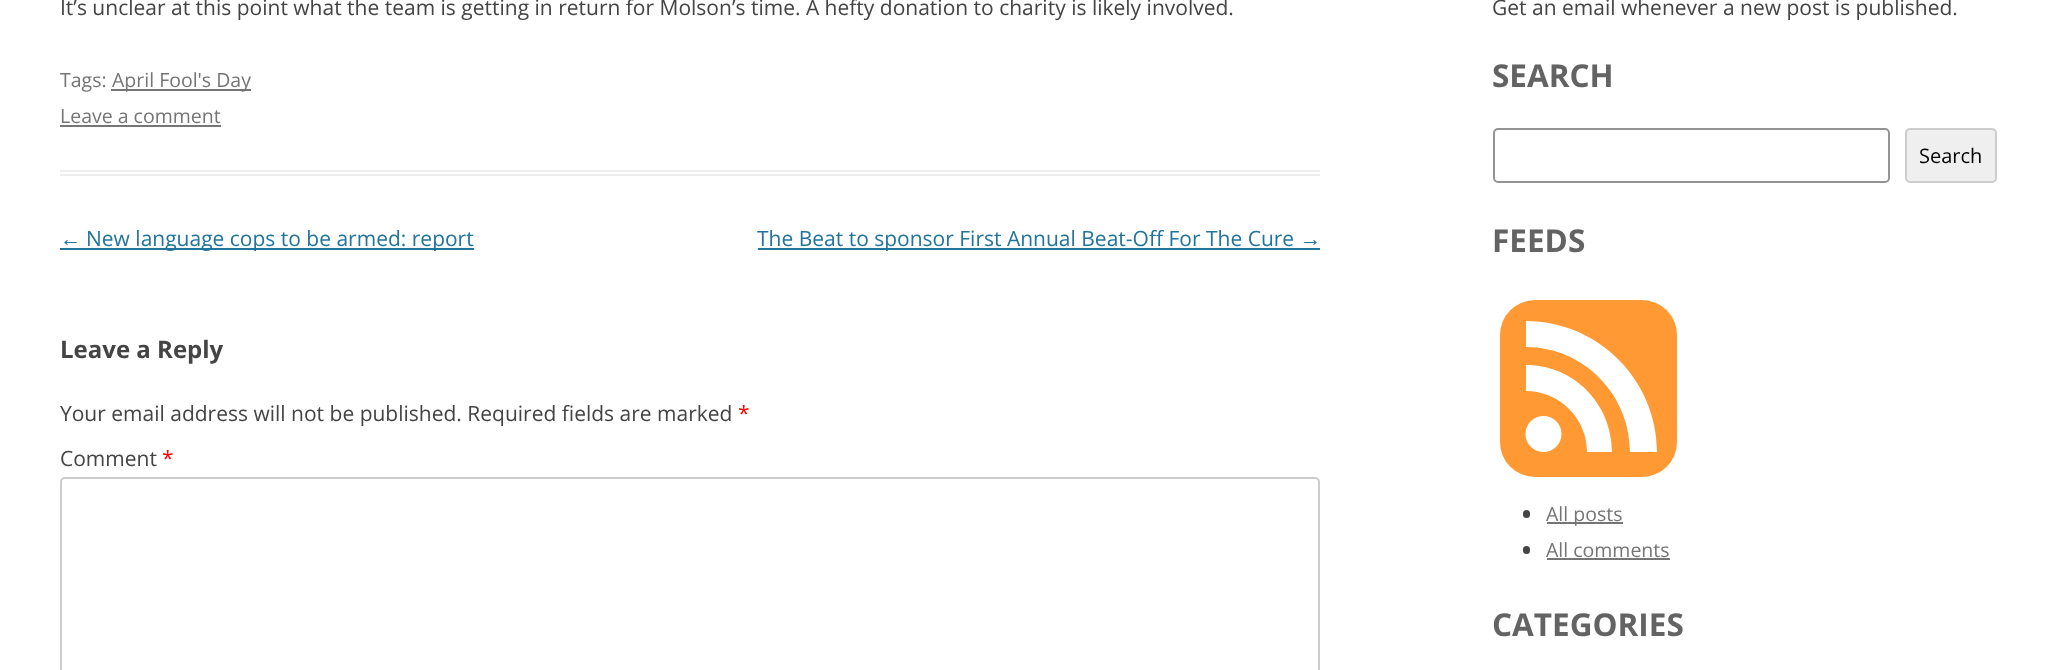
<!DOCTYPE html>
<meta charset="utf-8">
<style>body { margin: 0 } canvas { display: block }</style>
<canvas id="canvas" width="2056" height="670"></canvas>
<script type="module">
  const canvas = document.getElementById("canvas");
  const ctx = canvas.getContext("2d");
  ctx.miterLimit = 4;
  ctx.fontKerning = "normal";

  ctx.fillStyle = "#ffffff";
  ctx.fillRect(0, 0, 2056, 670);
  ctx.fillStyle = "#ededed";
  ctx.fillRect(60, 170, 1260, 2);
  ctx.fillRect(60, 174, 1260, 2);
  ctx.font = "21px Open Sans";
  ctx.fillStyle = "#444444";
  ctx.fillText("It’s unclear at this point what the team is getting in return for Molson’s time. A hefty donation to charity is likely involved.", 60, 15);
  ctx.font = "19.5px Open Sans";
  ctx.fillStyle = "#757575";
  ctx.fillText("Tags:", 60, 87);
  ctx.fillRect(111, 89, 140, 2);
  ctx.fillText("April Fool's Day", 112, 87);
  ctx.fillText("Leave a comment", 60, 123);
  ctx.fillRect(60, 125, 161, 2);
  ctx.font = "21px Liberation Sans";
  ctx.fillStyle = "#21759b";
  ctx.fillText("←", 60, 246);
  ctx.fillRect(60, 248, 414, 2);
  ctx.font = "21px Open Sans";
  ctx.fillText("New language cops to be armed: report", 86, 246);
  ctx.fillRect(758, 248, 562, 2);
  ctx.fillText("The Beat to sponsor First Annual Beat-Off For The Cure", 757, 246);
  ctx.font = "21px Liberation Sans";
  ctx.fillText("→", 1300, 246);
  ctx.font = "bold 24px Open Sans";
  ctx.fillStyle = "#444444";
  ctx.fillText("Leave a Reply", 60, 358);
  ctx.font = "21px Open Sans";
  ctx.fillText("Your email address will not be published. Required fields are marked", 60, 421);
  ctx.fillStyle = "#ff0000";
  ctx.fillText("*", 738, 421);
  ctx.fillStyle = "#444444";
  ctx.fillText("Comment", 60, 466);
  ctx.fillStyle = "#ff0000";
  ctx.fillText("*", 162, 466);
  ctx.beginPath();
  ctx.roundRect(61, 478, 1258, 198, 4);
  ctx.strokeStyle = "#cccccc";
  ctx.lineWidth = 2;
  ctx.stroke();
  ctx.fillStyle = "#444444";
  ctx.fillText("Get an email whenever a new post is published.", 1492, 15);
  ctx.font = "bold 31.5px Open Sans";
  ctx.fillStyle = "#636363";
  ctx.fillText("SEARCH", 1492, 87);
  ctx.beginPath();
  ctx.roundRect(1494, 129, 395, 53, 4);
  ctx.strokeStyle = "#949494";
  ctx.stroke();
  ctx.fillStyle = "#efefef";
  ctx.beginPath();
  ctx.roundRect(1906, 129, 90, 53, 4);
  ctx.fill();
  ctx.strokeStyle = "#cccccc";
  ctx.stroke();
  ctx.font = "20px Open Sans";
  ctx.fillStyle = "#000000";
  ctx.fillText("Search", 1919, 163);
  ctx.font = "bold 31.5px Open Sans";
  ctx.fillStyle = "#636363";
  ctx.fillText("FEEDS", 1492, 252);
  ctx.fillStyle = "#ff9933";
  ctx.beginPath();
  ctx.roundRect(1500, 300, 177, 177, 35);
  ctx.fill();
  ctx.fillStyle = "#ffffff";
  ctx.beginPath();
  ctx.arc(1543.5, 434, 18, 0, Math.PI * 2);
  ctx.fill();
  ctx.beginPath();
  ctx.moveTo(1612, 452);
  ctx.lineTo(1587, 452);
  ctx.bezierCurveTo(1587, 418, 1559, 391, 1526, 391);
  ctx.lineTo(1526, 365);
  ctx.bezierCurveTo(1574, 365, 1612, 404, 1612, 452);
  ctx.closePath();
  ctx.fill();
  ctx.beginPath();
  ctx.moveTo(1630, 452);
  ctx.bezierCurveTo(1630, 394, 1583, 347, 1526, 347);
  ctx.lineTo(1526, 321);
  ctx.bezierCurveTo(1598, 321, 1657, 380, 1657, 452);
  ctx.closePath();
  ctx.fill();
  ctx.fillStyle = "#444444";
  ctx.beginPath();
  ctx.roundRect(1523, 510, 7, 8, 3.5);
  ctx.fill();
  ctx.fillStyle = "#757575";
  ctx.fillRect(1547, 522, 76, 2);
  ctx.font = "19.5px Open Sans";
  ctx.fillText("All posts", 1546, 521);
  ctx.fillStyle = "#444444";
  ctx.beginPath();
  ctx.roundRect(1523, 546, 7, 8, 3.5);
  ctx.fill();
  ctx.fillStyle = "#757575";
  ctx.fillText("All comments", 1546, 557);
  ctx.fillRect(1547, 558, 123, 2);
  ctx.font = "bold 31.5px Open Sans";
  ctx.fillStyle = "#636363";
  ctx.fillText("CATEGORIES", 1492, 636);
</script>
